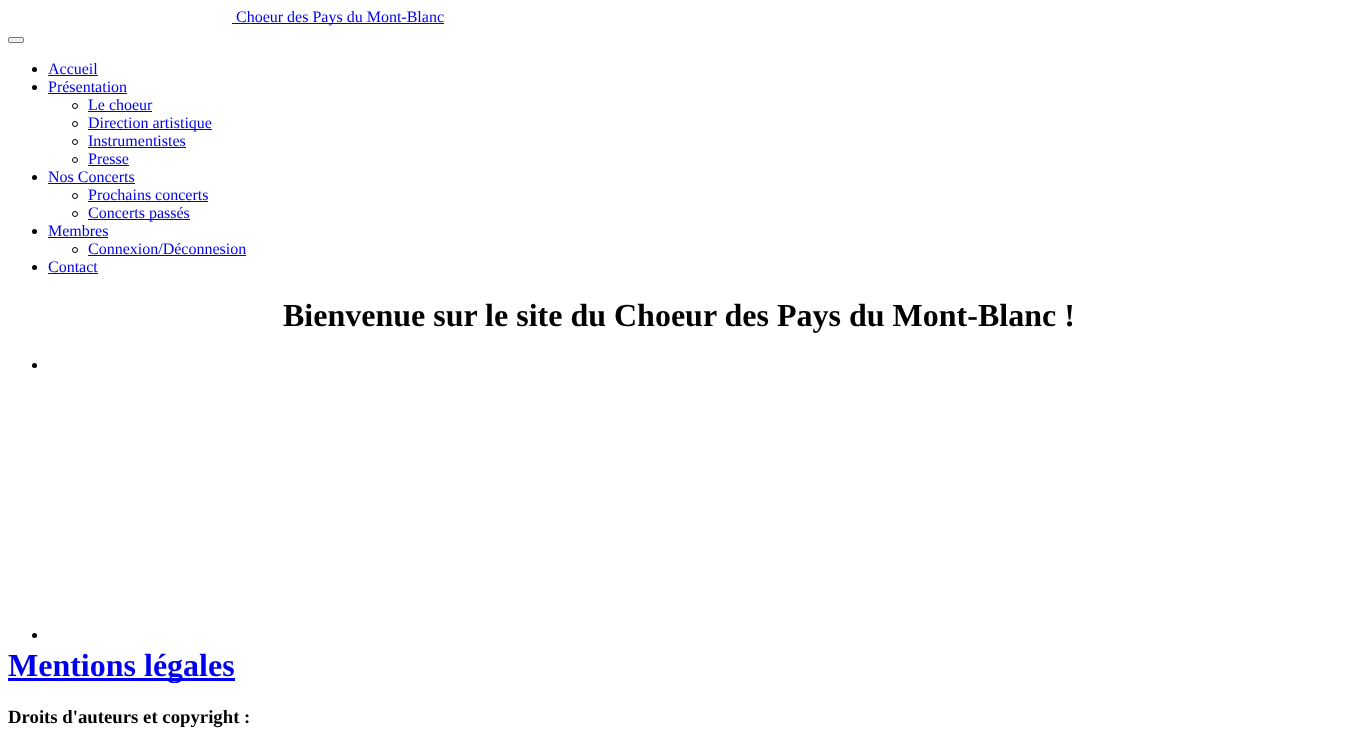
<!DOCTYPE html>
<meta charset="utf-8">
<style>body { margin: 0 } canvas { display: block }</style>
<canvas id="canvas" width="1350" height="734"></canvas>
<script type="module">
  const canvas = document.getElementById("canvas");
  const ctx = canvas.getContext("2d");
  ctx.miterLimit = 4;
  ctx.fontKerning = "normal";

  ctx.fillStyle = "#ffffff";
  ctx.fillRect(0, 0, 1350, 734);
  ctx.fillStyle = "#0000ee";
  ctx.fillRect(232, 23, 212, 1);
  ctx.font = "16px Liberation Serif";
  ctx.fillText("Choeur des Pays du Mont-Blanc", 236, 22);
  ctx.fillStyle = "#efefef";
  ctx.beginPath();
  ctx.roundRect(8.5, 37.5, 15, 5, 1.5);
  ctx.fill();
  ctx.strokeStyle = "#767676";
  ctx.stroke();
  ctx.fillStyle = "#000000";
  ctx.beginPath();
  ctx.arc(34.5, 69.5, 2.5, 0, Math.PI * 2);
  ctx.fill();
  ctx.fillStyle = "#0000ee";
  ctx.fillText("Accueil", 48, 74);
  ctx.fillRect(48, 75, 50, 1);
  ctx.fillStyle = "#000000";
  ctx.beginPath();
  ctx.arc(34.5, 87.5, 2.5, 0, Math.PI * 2);
  ctx.fill();
  ctx.fillStyle = "#0000ee";
  ctx.fillText("Présentation", 48, 92);
  ctx.fillRect(48, 93, 79, 1);
  ctx.beginPath();
  ctx.arc(75, 106, 2.5, 0, Math.PI * 2);
  ctx.strokeStyle = "#000000";
  ctx.stroke();
  ctx.fillText("Le choeur", 88, 110);
  ctx.fillRect(88, 111, 64, 1);
  ctx.beginPath();
  ctx.arc(75, 124, 2.5, 0, Math.PI * 2);
  ctx.stroke();
  ctx.fillRect(88, 129, 124, 1);
  ctx.fillText("Direction artistique", 88, 128);
  ctx.beginPath();
  ctx.arc(75, 142, 2.5, 0, Math.PI * 2);
  ctx.stroke();
  ctx.fillText("Instrumentistes", 88, 146);
  ctx.fillRect(88, 147, 98, 1);
  ctx.beginPath();
  ctx.arc(75, 160, 2.5, 0, Math.PI * 2);
  ctx.stroke();
  ctx.fillText("Presse", 88, 164);
  ctx.fillRect(88, 165, 41, 1);
  ctx.fillStyle = "#000000";
  ctx.beginPath();
  ctx.arc(34.5, 177.5, 2.5, 0, Math.PI * 2);
  ctx.fill();
  ctx.fillStyle = "#0000ee";
  ctx.fillText("Nos Concerts", 48, 182);
  ctx.fillRect(48, 183, 87, 1);
  ctx.beginPath();
  ctx.arc(75, 196, 2.5, 0, Math.PI * 2);
  ctx.stroke();
  ctx.fillText("Prochains concerts", 88, 200);
  ctx.fillRect(88, 201, 120, 1);
  ctx.beginPath();
  ctx.arc(75, 214, 2.5, 0, Math.PI * 2);
  ctx.stroke();
  ctx.fillRect(88, 219, 102, 1);
  ctx.fillText("Concerts passés", 88, 218);
  ctx.fillStyle = "#000000";
  ctx.beginPath();
  ctx.arc(34.5, 231.5, 2.5, 0, Math.PI * 2);
  ctx.fill();
  ctx.fillStyle = "#0000ee";
  ctx.fillText("Membres", 48, 236);
  ctx.fillRect(48, 237, 60, 1);
  ctx.beginPath();
  ctx.arc(75, 250, 2.5, 0, Math.PI * 2);
  ctx.stroke();
  ctx.fillText("Connexion/Déconnesion", 88, 254);
  ctx.fillRect(88, 255, 158, 1);
  ctx.fillStyle = "#000000";
  ctx.beginPath();
  ctx.arc(34.5, 267.5, 2.5, 0, Math.PI * 2);
  ctx.fill();
  ctx.fillStyle = "#0000ee";
  ctx.fillText("Contact", 48, 272);
  ctx.fillRect(48, 273, 50, 1);
  ctx.font = "bold 32px Liberation Serif";
  ctx.fillStyle = "#000000";
  ctx.fillText("Bienvenue sur le site du Choeur des Pays du Mont-Blanc !", 283, 326);
  ctx.beginPath();
  ctx.arc(34.5, 365.5, 2.5, 0, Math.PI * 2);
  ctx.fill();
  ctx.beginPath();
  ctx.arc(34.5, 635.5, 2.5, 0, Math.PI * 2);
  ctx.fill();
  ctx.fillStyle = "#0000ee";
  ctx.fillRect(8, 678, 227, 3);
  ctx.fillText("Mentions légales", 8, 676);
  ctx.font = "bold 18.75px Liberation Serif";
  ctx.fillStyle = "#000000";
  ctx.fillText("Droits d'auteurs et copyright :", 8, 723);
</script>
